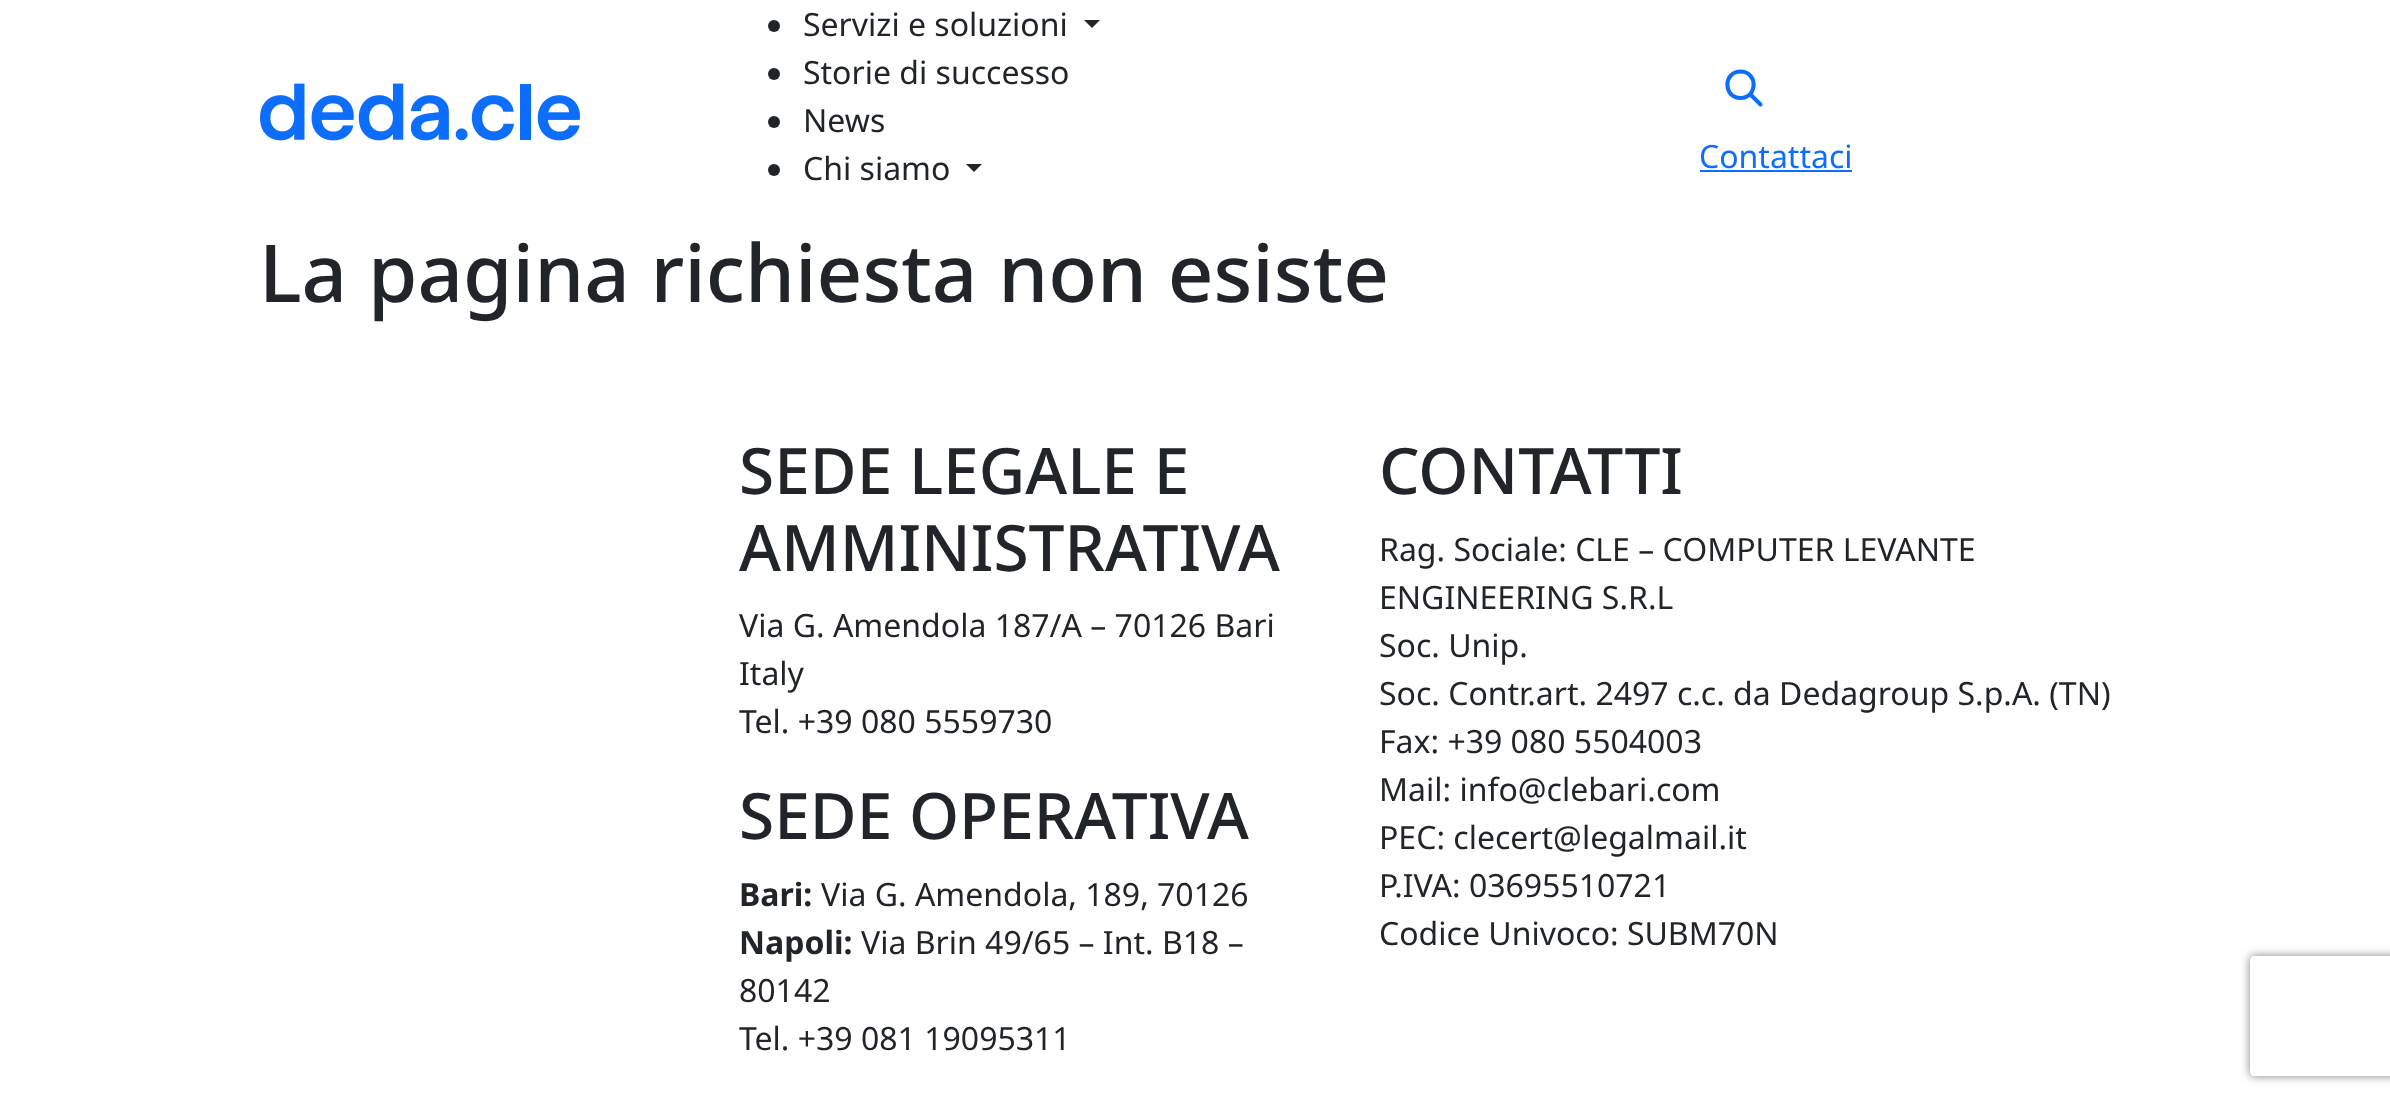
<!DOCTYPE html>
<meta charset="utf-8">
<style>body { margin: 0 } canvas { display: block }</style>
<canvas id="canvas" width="2390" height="1104"></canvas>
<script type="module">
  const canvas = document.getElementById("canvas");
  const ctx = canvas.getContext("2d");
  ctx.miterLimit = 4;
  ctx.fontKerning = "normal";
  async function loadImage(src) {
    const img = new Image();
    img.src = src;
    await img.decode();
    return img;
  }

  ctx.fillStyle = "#ffffff";
  ctx.fillRect(0, 0, 2390, 1104);
  ctx.drawImage(await loadImage("img1.png"), 260, 83, 320, 58);
  ctx.fillStyle = "#212529";
  ctx.beginPath();
  ctx.arc(774, 26, 6, 0, Math.PI * 2);
  ctx.fill();
  ctx.font = "32px Noto Sans";
  ctx.fillText("Servizi e soluzioni", 803, 36);
  ctx.beginPath();
  ctx.moveTo(1084, 20);
  ctx.lineTo(1100, 20);
  ctx.lineTo(1092, 28);
  ctx.closePath();
  ctx.fill();
  ctx.beginPath();
  ctx.arc(774, 74, 6, 0, Math.PI * 2);
  ctx.fill();
  ctx.fillText("Storie di successo", 803, 84);
  ctx.beginPath();
  ctx.arc(774, 122, 6, 0, Math.PI * 2);
  ctx.fill();
  ctx.fillText("News", 803, 132);
  ctx.beginPath();
  ctx.arc(774, 170, 6, 0, Math.PI * 2);
  ctx.fill();
  ctx.fillText("Chi siamo", 803, 180);
  ctx.beginPath();
  ctx.moveTo(966, 164);
  ctx.lineTo(982, 164);
  ctx.lineTo(974, 172);
  ctx.closePath();
  ctx.fill();
  ctx.beginPath();
  ctx.moveTo(1760.5, 104.5);
  ctx.lineTo(1750.5, 94.5);
  ctx.moveTo(1740.5, 98);
  ctx.bezierCurveTo(1758, 98, 1758, 71.5, 1740.5, 71.5);
  ctx.bezierCurveTo(1723, 71.5, 1723, 98, 1740.5, 98);
  ctx.closePath();
  ctx.strokeStyle = "#0d6efd";
  ctx.lineWidth = 4;
  ctx.lineCap = "round";
  ctx.lineJoin = "round";
  ctx.stroke();
  ctx.fillStyle = "#0d6efd";
  ctx.fillText("Contattaci", 1699, 168);
  ctx.fillRect(1700, 170, 152, 2);
  ctx.font = "500 79.8px Noto Sans";
  ctx.fillStyle = "#212529";
  ctx.fillText("La pagina richiesta non esiste", 259, 302);
  ctx.font = "500 64px Noto Sans";
  ctx.fillText("SEDE LEGALE E", 739, 494);
  ctx.fillText("AMMINISTRATIVA", 739, 571);
  ctx.font = "32px Noto Sans";
  ctx.fillText("Via G. Amendola 187/A – 70126 Bari", 739, 637);
  ctx.fillText("Italy", 739, 685);
  ctx.fillText("Tel. +39 080 5559730", 739, 733);
  ctx.font = "500 64px Noto Sans";
  ctx.fillText("SEDE OPERATIVA", 739, 839);
  ctx.font = "bold 32px Noto Sans";
  ctx.fillText("Bari:", 739, 906);
  ctx.font = "32px Noto Sans";
  ctx.fillText("Via G. Amendola, 189, 70126", 821, 906);
  ctx.font = "bold 32px Noto Sans";
  ctx.fillText("Napoli:", 739, 954);
  ctx.font = "32px Noto Sans";
  ctx.fillText("Via Brin 49/65 – Int. B18 –", 861, 954);
  ctx.fillText("80142", 739, 1002);
  ctx.fillText("Tel. +39 081 19095311", 739, 1050);
  ctx.font = "500 64px Noto Sans";
  ctx.fillText("CONTATTI", 1379, 494);
  ctx.font = "32px Noto Sans";
  ctx.fillText("Rag. Sociale: CLE – COMPUTER LEVANTE", 1379, 561);
  ctx.fillText("ENGINEERING S.R.L", 1379, 609);
  ctx.fillText("Soc. Unip.", 1379, 657);
  ctx.fillText("Soc. Contr.art. 2497 c.c. da Dedagroup S.p.A. (TN)", 1379, 705);
  ctx.fillText("Fax: +39 080 5504003", 1379, 753);
  ctx.fillText("Mail: info@clebari.com", 1379, 801);
  ctx.fillText("PEC: clecert@legalmail.it", 1379, 849);
  ctx.fillText("P.IVA: 03695510721", 1379, 897);
  ctx.fillText("Codice Univoco: SUBM70N", 1379, 945);
  ctx.save();
  ctx.beginPath();
  ctx.moveTo(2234, 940);
  ctx.lineTo(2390, 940);
  ctx.lineTo(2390, 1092);
  ctx.lineTo(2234, 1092);
  ctx.closePath();
  ctx.moveTo(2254, 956);
  ctx.lineTo(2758, 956);
  ctx.bezierCurveTo(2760, 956, 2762, 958, 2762, 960);
  ctx.lineTo(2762, 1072);
  ctx.bezierCurveTo(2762, 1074, 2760, 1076, 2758, 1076);
  ctx.lineTo(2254, 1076);
  ctx.bezierCurveTo(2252, 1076, 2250, 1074, 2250, 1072);
  ctx.lineTo(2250, 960);
  ctx.bezierCurveTo(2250, 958, 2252, 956, 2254, 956);
  ctx.closePath();
  ctx.clip("evenodd");
  ctx.fillStyle = "#808080";
  ctx.filter = "blur(5px)";
  ctx.beginPath();
  ctx.roundRect(2250, 956, 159, 120, 4);
  ctx.fill();
  ctx.filter = "none";
  ctx.restore();
</script>
